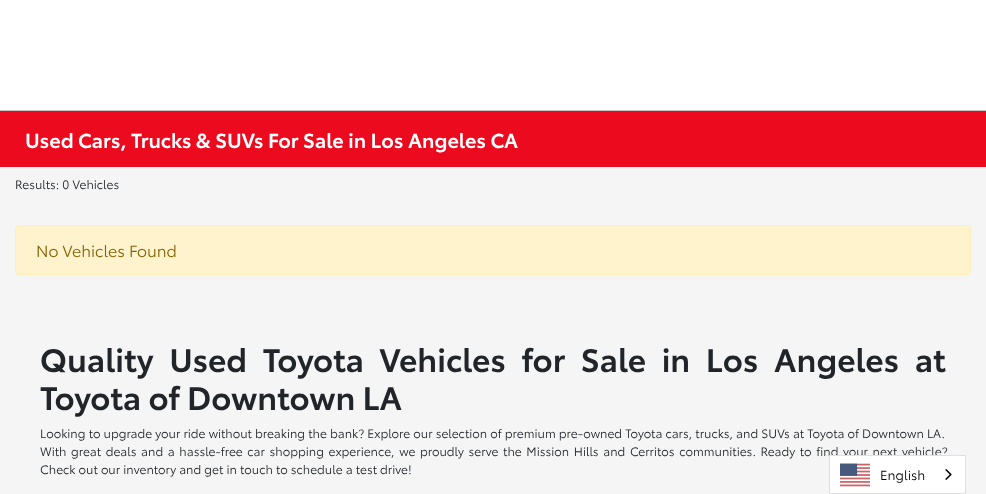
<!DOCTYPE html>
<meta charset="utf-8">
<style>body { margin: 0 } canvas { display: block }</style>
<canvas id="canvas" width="986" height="494"></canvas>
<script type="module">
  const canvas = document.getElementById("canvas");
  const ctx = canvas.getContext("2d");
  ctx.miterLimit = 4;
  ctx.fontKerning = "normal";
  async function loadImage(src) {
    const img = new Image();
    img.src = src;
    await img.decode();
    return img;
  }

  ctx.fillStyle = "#ffffff";
  ctx.fillRect(0, 0, 986, 494);
  ctx.fillStyle = "#f5f5f5";
  ctx.fillRect(0, 167, 986, 327);
  ctx.fillStyle = "#eb0a1e";
  ctx.fillRect(0, 111, 986, 56);
  ctx.fillStyle = "#c6c6c6";
  ctx.fillRect(0, 110, 986, 1);
  ctx.font = "600 20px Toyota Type";
  ctx.fillStyle = "#ffffff";
  ctx.fillText("Used Cars, Trucks & SUVs For Sale in Los Angeles CA", 25, 148);
  ctx.font = "12px Toyota Type";
  ctx.fillStyle = "#212529";
  ctx.fillText("Results: 0 Vehicles", 15, 189);
  ctx.fillStyle = "#fff3cd";
  ctx.beginPath();
  ctx.roundRect(15.5, 225.5, 955, 49, 3.5);
  ctx.fill();
  ctx.strokeStyle = "#ffeeba";
  ctx.stroke();
  ctx.font = "16px Toyota Type";
  ctx.fillStyle = "#856404";
  ctx.fillText("No Vehicles Found", 36, 257);
  ctx.wordSpacing = "8.5px";
  ctx.font = "600 32px Toyota Type";
  ctx.fillStyle = "#212529";
  ctx.fillText("Quality Used Toyota Vehicles for Sale in Los Angeles at", 40, 372);
  ctx.wordSpacing = "0px";
  ctx.fillText("Toyota of Downtown LA", 40, 410);
  ctx.font = "12px Toyota Type";
  ctx.fillText("Looking to upgrade your ride without breaking the bank? Explore our selection of premium pre-owned Toyota cars, trucks, and SUVs at Toyota of Downtown LA.", 40, 438);
  ctx.wordSpacing = "1.5px";
  ctx.fillText("With great deals and a hassle-free car shopping experience, we proudly serve the Mission Hills and Cerritos communities. Ready to find your next vehicle?", 40, 456);
  ctx.wordSpacing = "0px";
  ctx.fillText("Check out our inventory and get in touch to schedule a test drive!", 40, 474);
  ctx.fillStyle = "#ffffff";
  ctx.beginPath();
  ctx.rect(829.5, 455.5, 136, 38);
  ctx.fill();
  ctx.strokeStyle = "#e0e0e0";
  ctx.stroke();
  ctx.drawImage(await loadImage("img1.png"), 840, 463, 30, 24);
  ctx.font = "13px Toyota Type";
  ctx.fillStyle = "#000000";
  ctx.fillText("English", 880, 480);
  ctx.drawImage(await loadImage("img2.png"), 945, 469, 7, 11);
</script>
